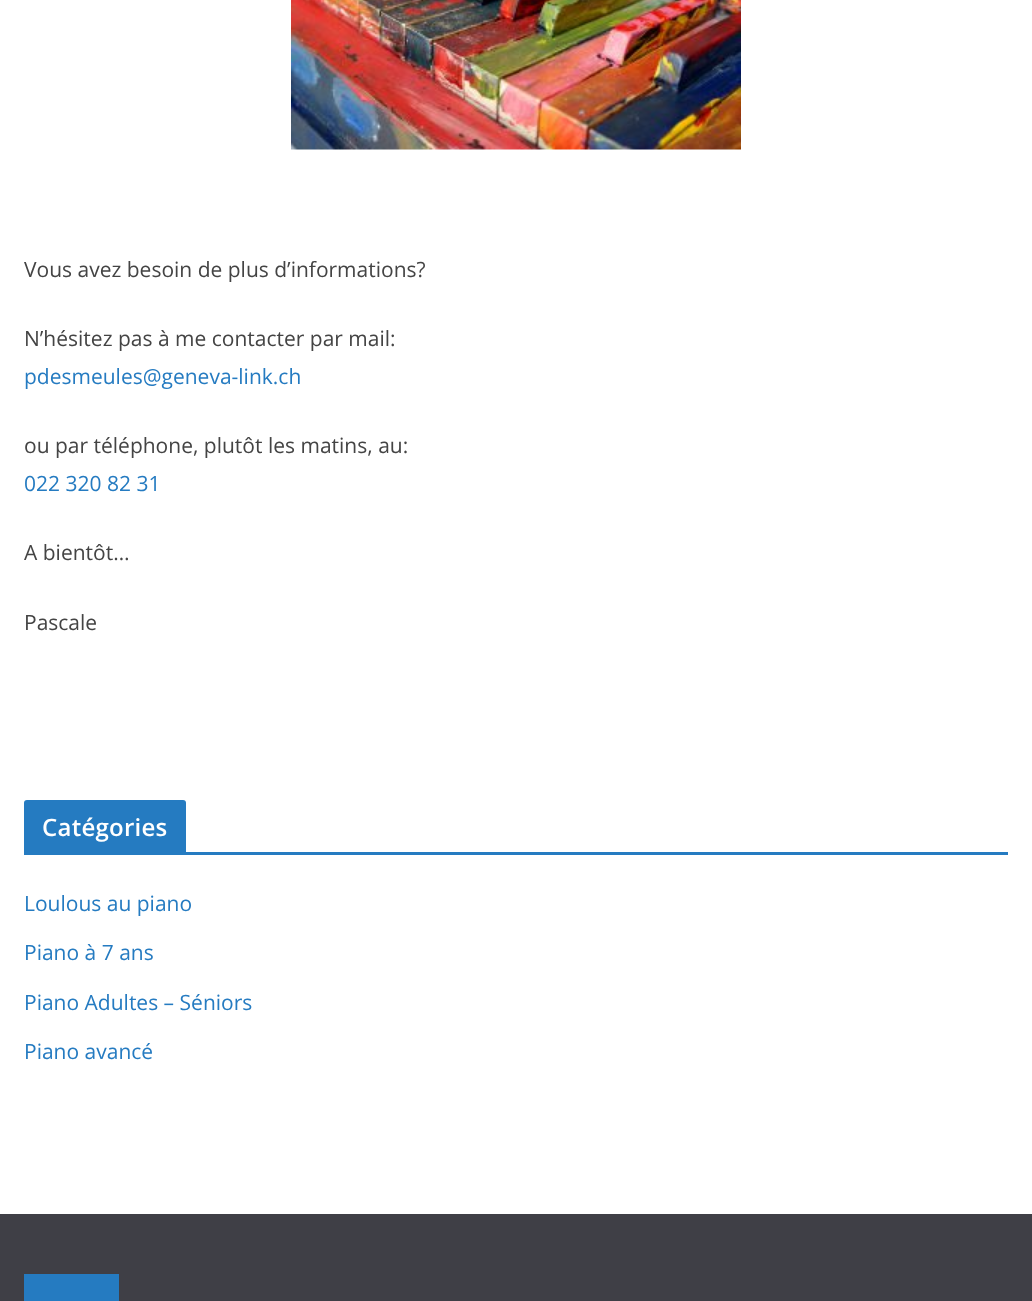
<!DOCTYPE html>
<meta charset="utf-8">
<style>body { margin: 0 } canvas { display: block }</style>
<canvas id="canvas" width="1032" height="1301"></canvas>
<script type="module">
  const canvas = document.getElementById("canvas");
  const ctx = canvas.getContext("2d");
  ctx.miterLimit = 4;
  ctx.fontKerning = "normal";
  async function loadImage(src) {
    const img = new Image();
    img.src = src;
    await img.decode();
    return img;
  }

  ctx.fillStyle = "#ffffff";
  ctx.fillRect(0, 0, 1032, 1301);
  ctx.drawImage(await loadImage("img1.png"), 291, 0, 450, 150);
  ctx.font = "21px Open Sans";
  ctx.fillStyle = "#444444";
  ctx.fillText("Vous avez besoin de plus d’informations?", 24, 277);
  ctx.fillText("N’hésitez pas à me contacter par mail:", 24, 346);
  ctx.fillStyle = "#257bc1";
  ctx.fillText("pdesmeules@geneva-link.ch", 24, 384);
  ctx.fillStyle = "#444444";
  ctx.fillText("ou par téléphone, plutôt les matins, au:", 24, 453);
  ctx.fillStyle = "#257bc1";
  ctx.fillText("022 320 82 31", 24, 491);
  ctx.fillStyle = "#444444";
  ctx.fillText("A bientôt…", 24, 560);
  ctx.fillText("Pascale", 24, 630);
  ctx.fillStyle = "#257bc1";
  ctx.fillRect(24, 852, 984, 3);
  ctx.beginPath();
  ctx.roundRect(24, 800, 162, 52, [3, 3, 0, 0]);
  ctx.fill();
  ctx.letterSpacing = "0.25px";
  ctx.font = "600 24px Open Sans";
  ctx.fillStyle = "#ffffff";
  ctx.fillText("Catégories", 42, 836);
  ctx.letterSpacing = "0px";
  ctx.font = "21px Open Sans";
  ctx.fillStyle = "#257bc1";
  ctx.fillText("Loulous au piano", 24, 911);
  ctx.fillText("Piano à 7 ans", 24, 960);
  ctx.fillText("Piano Adultes – Séniors", 24, 1010);
  ctx.fillText("Piano avancé", 24, 1059);
  ctx.fillStyle = "#3f3f46";
  ctx.fillRect(0, 1214, 1032, 87);
  ctx.fillStyle = "#257bc1";
  ctx.fillRect(24, 1274, 95, 27);
</script>
